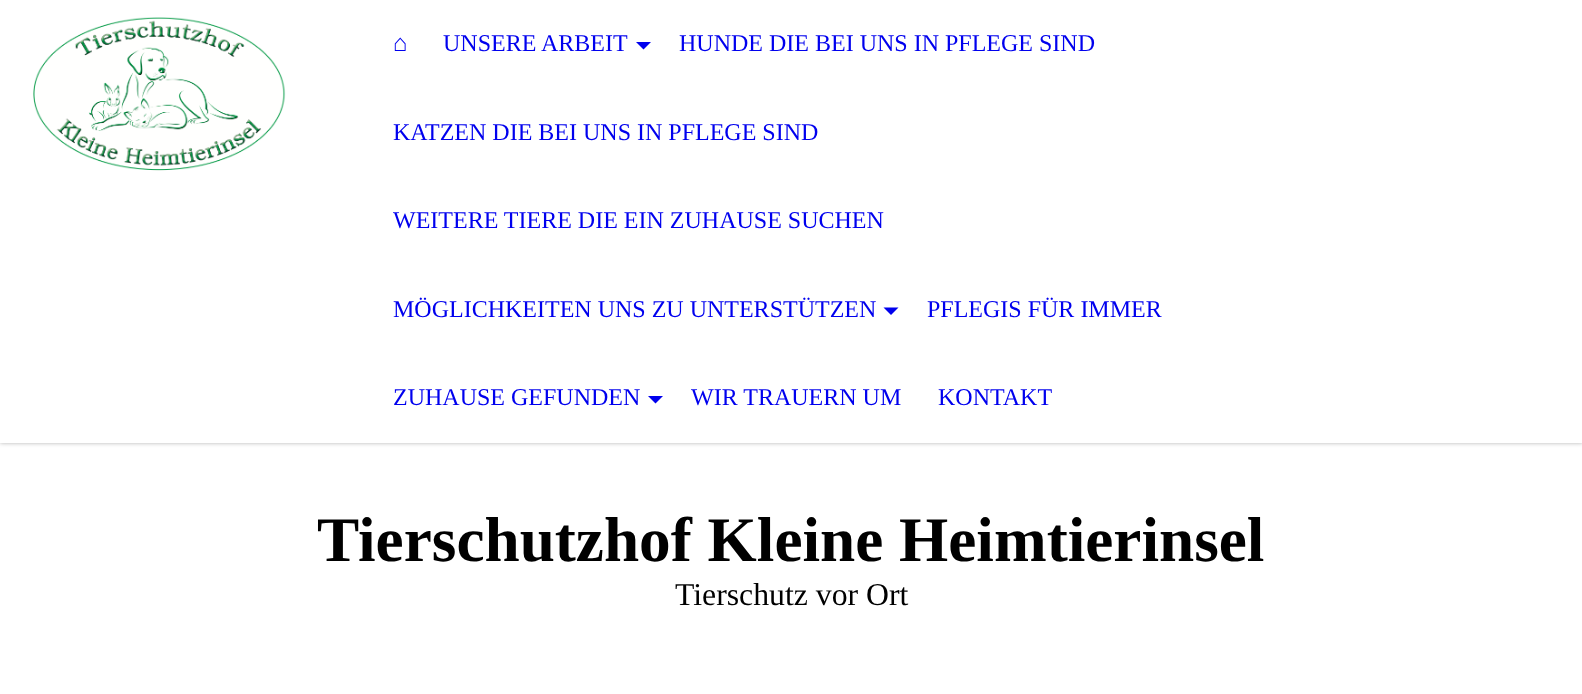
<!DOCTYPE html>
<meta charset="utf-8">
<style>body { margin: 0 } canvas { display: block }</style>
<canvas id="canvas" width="1582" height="694"></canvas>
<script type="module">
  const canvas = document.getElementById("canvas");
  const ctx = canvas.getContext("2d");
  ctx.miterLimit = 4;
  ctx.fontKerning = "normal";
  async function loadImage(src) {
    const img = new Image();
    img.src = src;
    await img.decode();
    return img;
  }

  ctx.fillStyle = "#ffffff";
  ctx.fillRect(0, 0, 1582, 694);
  ctx.save();
  ctx.beginPath();
  ctx.moveTo(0, 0);
  ctx.lineTo(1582, 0);
  ctx.lineTo(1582, 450);
  ctx.lineTo(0, 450);
  ctx.closePath();
  ctx.moveTo(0, 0);
  ctx.lineTo(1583, 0);
  ctx.lineTo(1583, 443);
  ctx.lineTo(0, 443);
  ctx.closePath();
  ctx.clip("evenodd");
  ctx.fillStyle = "rgba(0, 0, 0, 0.3)";
  ctx.filter = "blur(2px)";
  ctx.beginPath();
  ctx.rect(0, 0, 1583, 443);
  ctx.fill();
  ctx.filter = "none";
  ctx.restore();
  ctx.drawImage(await loadImage("img1.png"), 33, 17, 253, 154);
  ctx.font = "24px Liberation Serif";
  ctx.fillStyle = "#0000ee";
  ctx.fillText("⌂", 393, 51);
  ctx.fillText("UNSERE ARBEIT", 443, 51);
  ctx.beginPath();
  ctx.moveTo(636, 42);
  ctx.lineTo(651, 42);
  ctx.lineTo(643.5, 49.5);
  ctx.closePath();
  ctx.fill();
  ctx.fillText("HUNDE DIE BEI UNS IN PFLEGE SIND", 679, 51);
  ctx.fillText("KATZEN DIE BEI UNS IN PFLEGE SIND", 393, 140);
  ctx.fillText("WEITERE TIERE DIE EIN ZUHAUSE SUCHEN", 393, 228);
  ctx.fillText("MÖGLICHKEITEN UNS ZU UNTERSTÜTZEN", 393, 317);
  ctx.beginPath();
  ctx.moveTo(883.5, 307.5);
  ctx.lineTo(898.5, 307.5);
  ctx.lineTo(891, 315);
  ctx.closePath();
  ctx.fill();
  ctx.fillText("PFLEGIS FÜR IMMER", 927, 317);
  ctx.fillText("ZUHAUSE GEFUNDEN", 393, 405);
  ctx.beginPath();
  ctx.moveTo(648, 396);
  ctx.lineTo(663, 396);
  ctx.lineTo(655.5, 403.5);
  ctx.closePath();
  ctx.fill();
  ctx.fillText("WIR TRAUERN UM", 691, 405);
  ctx.fillText("KONTAKT", 938, 405);
  ctx.font = "bold 63.25px Liberation Serif";
  ctx.fillStyle = "#000000";
  ctx.fillText("Tierschutzhof Kleine Heimtierinsel", 317, 561);
  ctx.font = "31.75px Liberation Serif";
  ctx.fillText("Tierschutz vor Ort", 675, 605);
</script>
